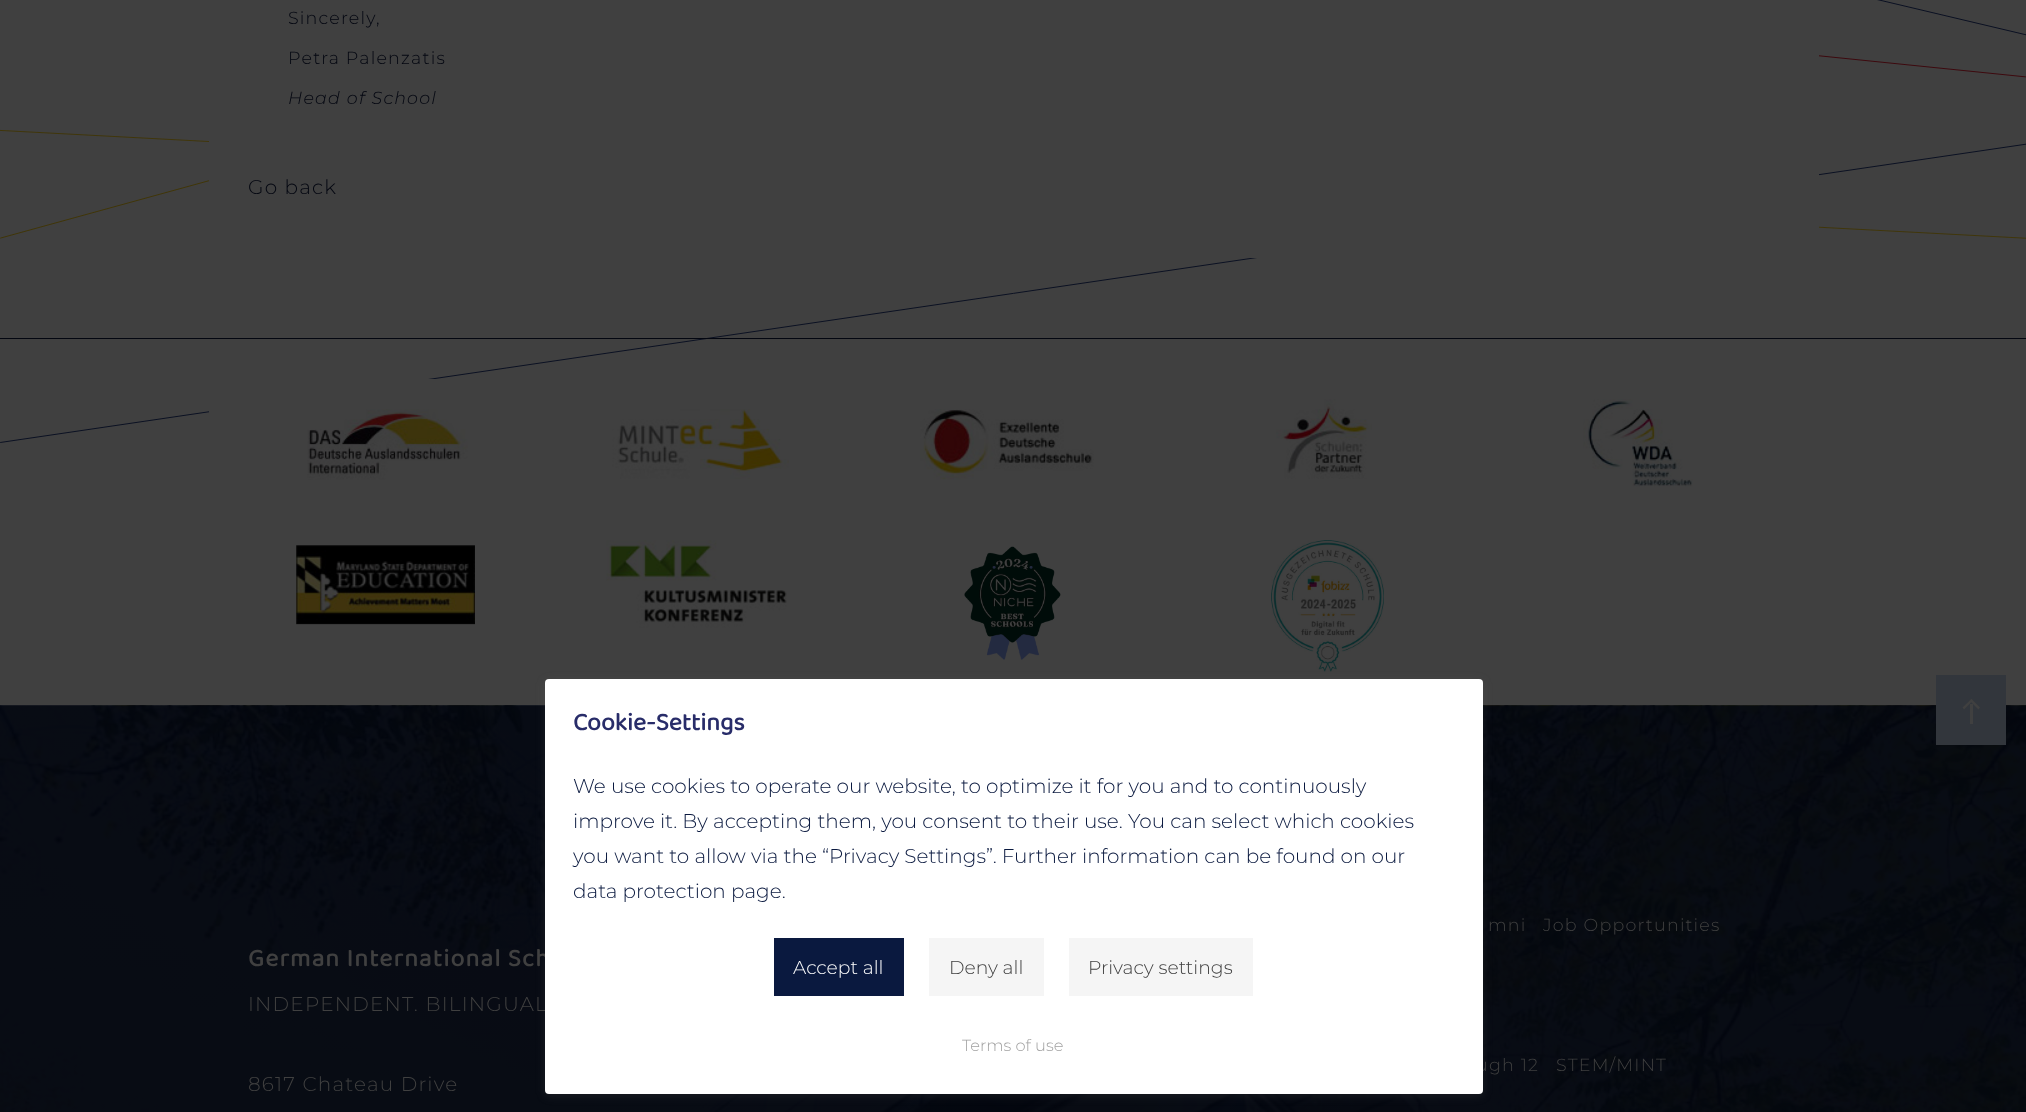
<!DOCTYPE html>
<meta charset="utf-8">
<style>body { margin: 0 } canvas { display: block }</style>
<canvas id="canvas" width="2026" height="1112"></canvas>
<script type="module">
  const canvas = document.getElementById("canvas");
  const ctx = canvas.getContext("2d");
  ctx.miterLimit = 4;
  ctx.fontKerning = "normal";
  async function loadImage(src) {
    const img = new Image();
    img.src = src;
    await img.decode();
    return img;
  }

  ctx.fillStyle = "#404040";
  ctx.fillRect(0, 0, 2026, 1112);
  ctx.drawImage(await loadImage("img1.png"), 0, 0, 2026, 443);
  ctx.fillRect(209, 0, 1610, 258);
  ctx.letterSpacing = "1.2px";
  ctx.font = "300 17.5px Montserrat";
  ctx.fillStyle = "#030610";
  ctx.fillText("Sincerely,", 288, 24);
  ctx.fillText("Petra Palenzatis", 288, 64);
  ctx.font = "italic 300 17.5px Montserrat";
  ctx.fillText("Head of School", 288, 104);
  ctx.font = "300 20px Montserrat";
  ctx.fillText("Go back", 248, 194);
  ctx.fillRect(0, 338, 2026, 1);
  ctx.fillStyle = "#404040";
  ctx.fillRect(209, 379, 226, 34);
  ctx.drawImage(await loadImage("img2.png"), 307, 409, 161, 71);
  ctx.drawImage(await loadImage("img3.png"), 612, 409, 177, 70);
  ctx.drawImage(await loadImage("img4.png"), 920, 409, 174, 71);
  ctx.drawImage(await loadImage("img5.png"), 1276, 399, 96, 80);
  ctx.drawImage(await loadImage("img6.png"), 1583, 399, 110, 88);
  ctx.drawImage(await loadImage("img7.png"), 296, 545, 179, 80);
  ctx.drawImage(await loadImage("img8.png"), 606, 540, 181, 88);
  ctx.drawImage(await loadImage("img9.png"), 964, 546, 97, 114);
  ctx.drawImage(await loadImage("img10.png"), 1271, 540, 113, 132);
  ctx.drawImage(await loadImage("img11.png"), 0, 705, 2026, 407);
  ctx.fillStyle = "#32363c";
  ctx.fillRect(1936, 675, 70, 70);
  ctx.fillStyle = "#404040";
  ctx.fillRect(1970, 704, 3, 20);
  ctx.beginPath();
  ctx.moveTo(1964, 709.5);
  ctx.lineTo(1962.5, 707.5);
  ctx.lineTo(1971.5, 699);
  ctx.lineTo(1973, 700.5);
  ctx.closePath();
  ctx.fill();
  ctx.beginPath();
  ctx.moveTo(1978.5, 709.5);
  ctx.lineTo(1969.5, 700.5);
  ctx.lineTo(1971.5, 699);
  ctx.lineTo(1980, 707.5);
  ctx.closePath();
  ctx.fill();
  ctx.font = "bold 25px 'Baloo 2'";
  ctx.fillText("German International Sch", 248, 966);
  ctx.font = "300 20px Montserrat";
  ctx.fillText("INDEPENDENT. BILINGUAL", 248, 1011);
  ctx.fillText("8617 Chateau Drive", 248, 1091);
  ctx.font = "300 17.5px Montserrat";
  ctx.fillText("mni", 1488, 931);
  ctx.fillText("Job Opportunities", 1543, 931);
  ctx.fillText("ugh 12", 1476, 1071);
  ctx.fillText("STEM/MINT", 1556, 1071);
  ctx.fillStyle = "rgba(99, 99, 99, 0.2)";
  ctx.filter = "blur(5px)";
  ctx.beginPath();
  ctx.roundRect(545, 681, 938, 415, 4);
  ctx.fill();
  ctx.filter = "none";
  ctx.fillStyle = "#ffffff";
  ctx.beginPath();
  ctx.roundRect(545, 679, 938, 415, 4);
  ctx.fill();
  ctx.letterSpacing = "0px";
  ctx.font = "bold 25px 'Baloo 2'";
  ctx.fillStyle = "#282c69";
  ctx.fillText("Cookie-Settings", 573, 730);
  ctx.font = "300 20px Montserrat";
  ctx.fillStyle = "#0a193f";
  ctx.fillText("We use cookies to operate our website, to optimize it for you and to continuously", 573, 793);
  ctx.fillText("improve it. By accepting them, you consent to their use. You can select which cookies", 573, 828);
  ctx.fillText("you want to allow via the “Privacy Settings”. Further information can be found on our", 573, 863);
  ctx.fillText("data protection page.", 573, 898);
  ctx.fillRect(774, 938, 130, 58);
  ctx.font = "300 18.75px Montserrat";
  ctx.fillStyle = "#ffffff";
  ctx.fillText("Accept all", 793, 974);
  ctx.fillStyle = "#f5f5f5";
  ctx.fillRect(929, 938, 115, 58);
  ctx.fillStyle = "#404040";
  ctx.fillText("Deny all", 949, 974);
  ctx.fillStyle = "#f5f5f5";
  ctx.fillRect(1069, 938, 184, 58);
  ctx.fillStyle = "#404040";
  ctx.fillText("Privacy settings", 1088, 974);
  ctx.font = "300 16.25px Montserrat";
  ctx.fillStyle = "#a2a2a2";
  ctx.fillText("Terms of use", 962, 1051);
</script>
